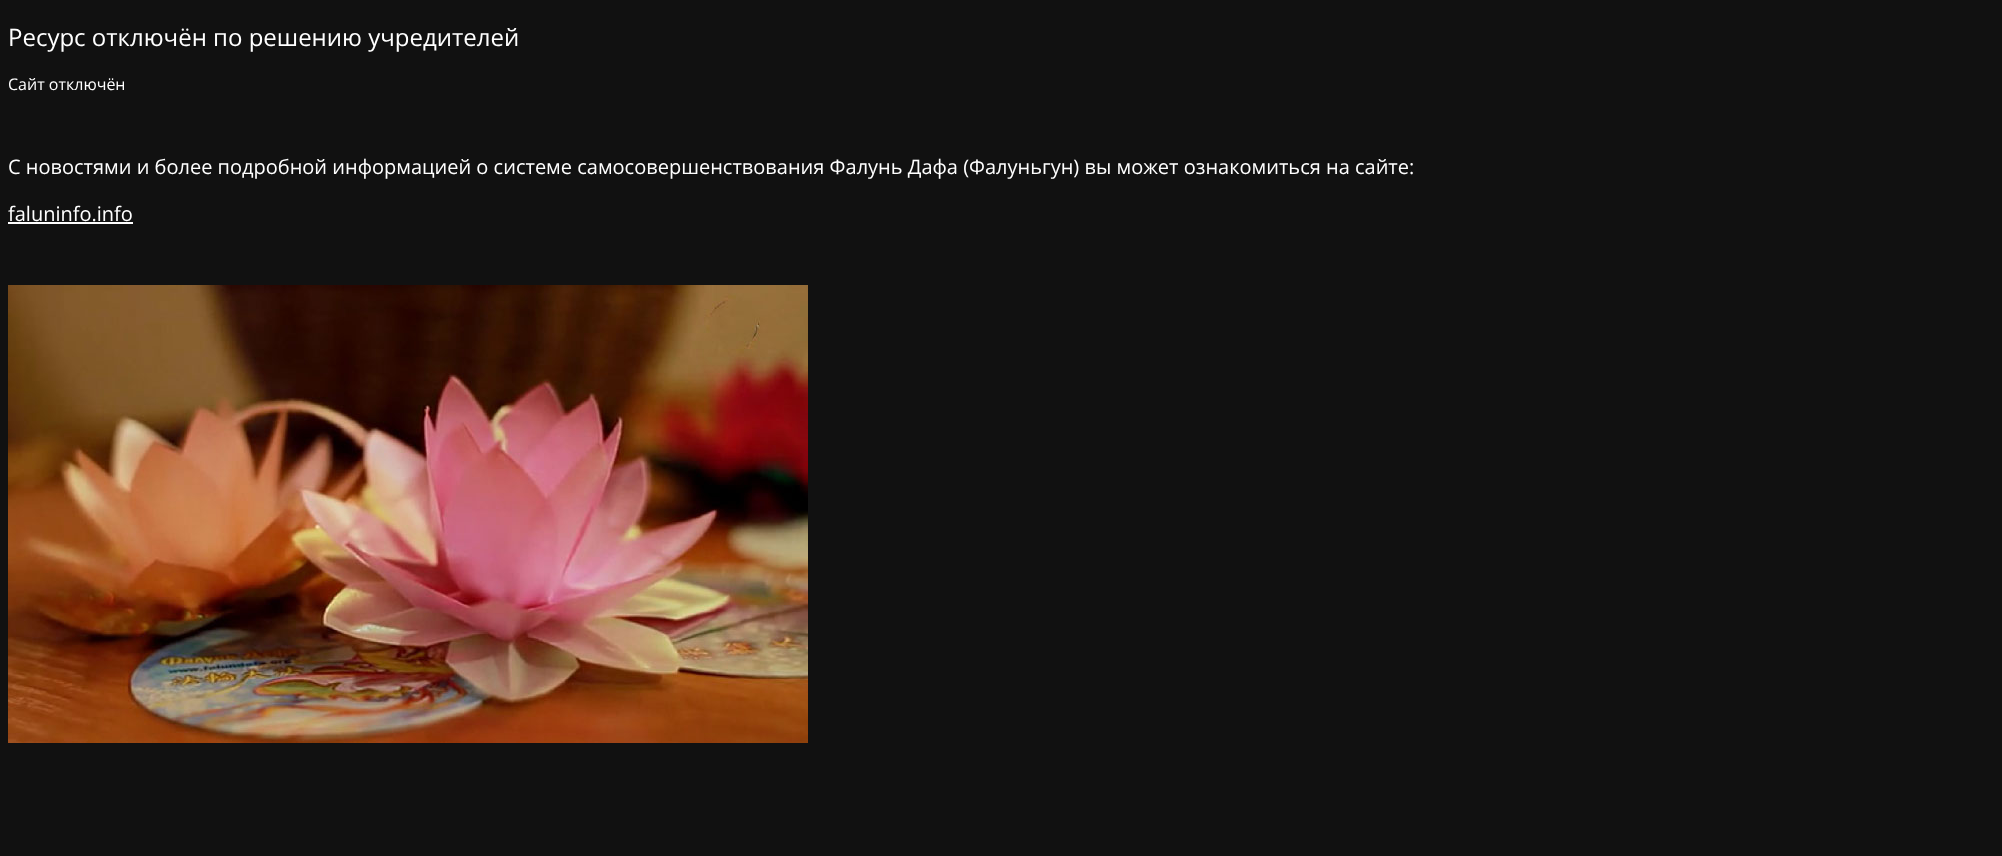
<!DOCTYPE html>
<meta charset="utf-8">
<style>body { margin: 0 } canvas { display: block }</style>
<canvas id="canvas" width="2002" height="856"></canvas>
<script type="module">
  const canvas = document.getElementById("canvas");
  const ctx = canvas.getContext("2d");
  ctx.miterLimit = 4;
  ctx.fontKerning = "normal";
  async function loadImage(src) {
    const img = new Image();
    img.src = src;
    await img.decode();
    return img;
  }

  ctx.fillStyle = "#111111";
  ctx.fillRect(0, 0, 2002, 856);
  ctx.font = "24px Open Sans";
  ctx.fillStyle = "#ffffff";
  ctx.fillText("Ресурс отключён по решению учредителей", 8, 46);
  ctx.font = "16px Open Sans";
  ctx.fillText("Сайт отключён", 8, 90);
  ctx.font = "20px Open Sans";
  ctx.fillText("С новостями и более подробной информацией о системе самосовершенствования Фалунь Дафа (Фалуньгун) вы может ознакомиться на сайте:", 8, 174);
  ctx.fillText("faluninfo.info", 8, 221);
  ctx.fillRect(8, 222, 125, 2);
  ctx.drawImage(await loadImage("img1.png"), 8, 285, 800, 458);
</script>
